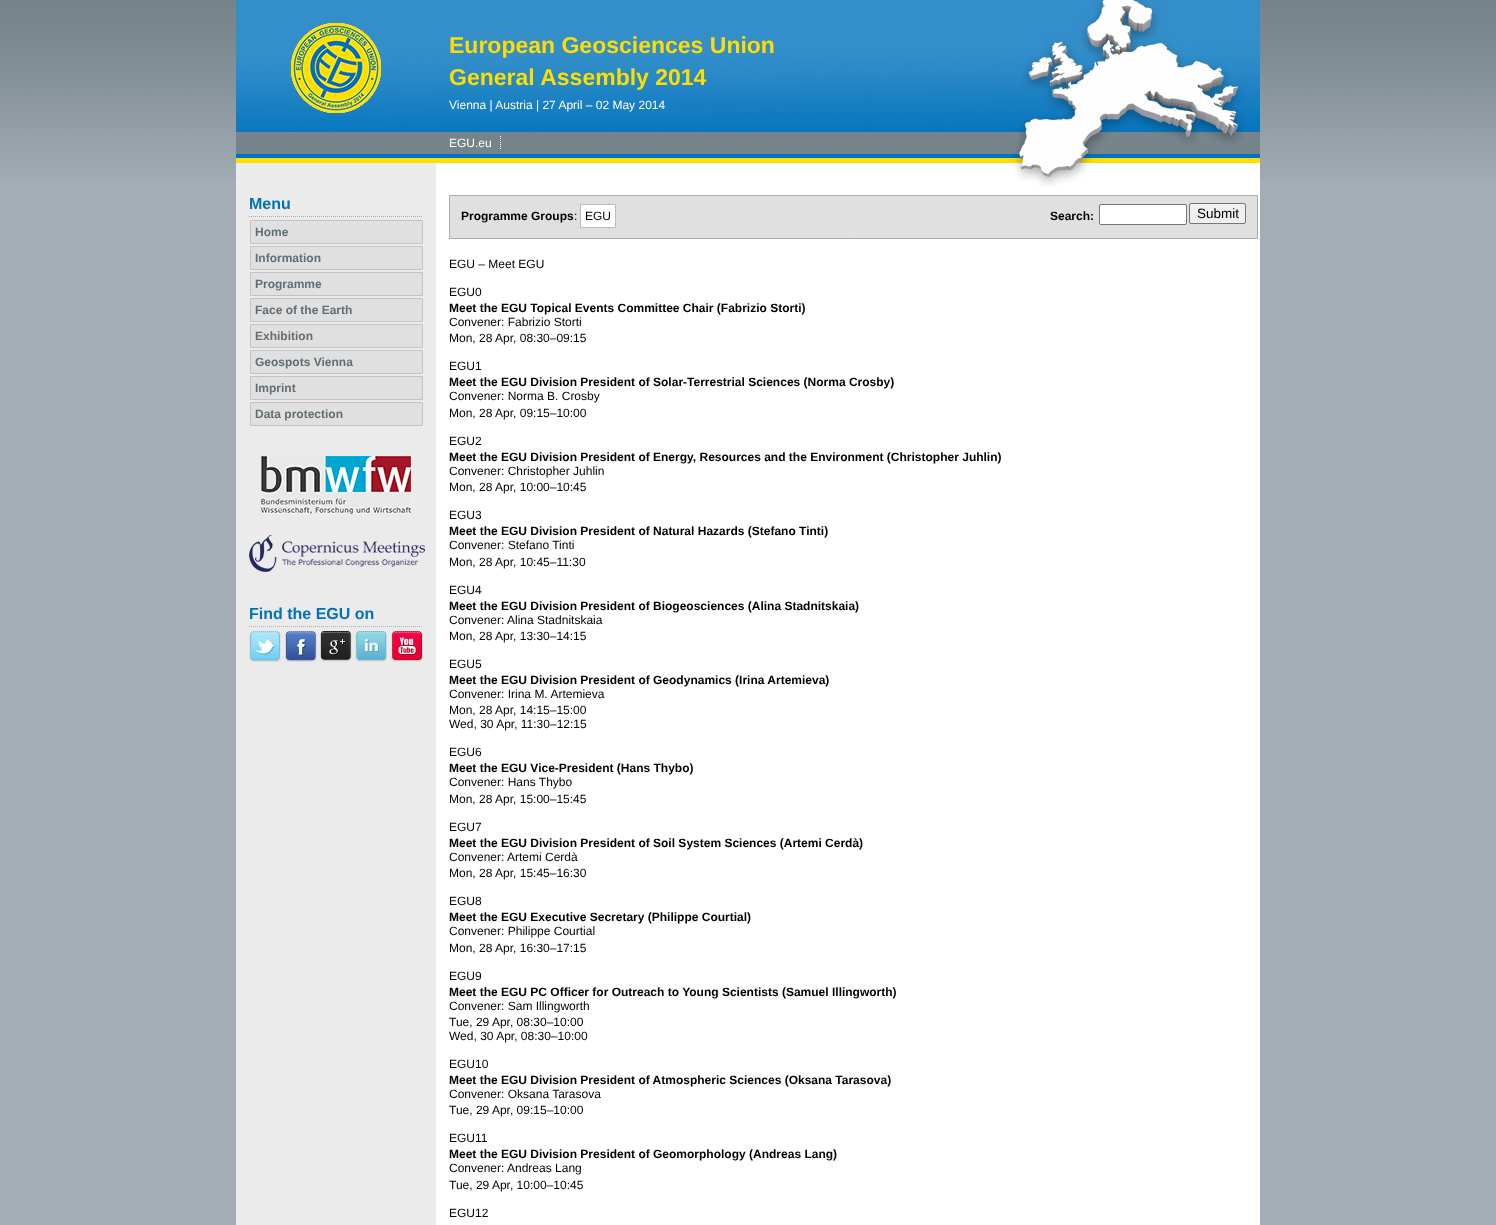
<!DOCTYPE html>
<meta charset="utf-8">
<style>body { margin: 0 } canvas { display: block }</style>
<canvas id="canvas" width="1496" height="1225"></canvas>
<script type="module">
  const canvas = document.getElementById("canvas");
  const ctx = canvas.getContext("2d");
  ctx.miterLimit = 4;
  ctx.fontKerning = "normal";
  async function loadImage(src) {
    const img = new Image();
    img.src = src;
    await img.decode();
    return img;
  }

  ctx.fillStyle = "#a4adb6";
  ctx.fillRect(0, 0, 1496, 1225);
  ctx.drawImage(await loadImage("img1.png"), 0, 0, 1496, 179);
  ctx.fillStyle = "#ffffff";
  ctx.fillRect(436, 187, 824, 1038);
  ctx.fillStyle = "#ebebeb";
  ctx.fillRect(236, 187, 200, 1038);
  ctx.drawImage(await loadImage("img2.png"), 236, 0, 1024, 187);
  ctx.font = "bold 23px Liberation Sans";
  ctx.fillStyle = "#fede00";
  ctx.fillText("European Geosciences Union", 449, 53);
  ctx.fillText("General Assembly 2014", 449, 85);
  ctx.font = "12px Liberation Sans";
  ctx.fillStyle = "#ffffff";
  ctx.fillText("Vienna | Austria | 27 April – 02 May 2014", 449, 109);
  ctx.fillText("EGU.eu", 449, 147);
  ctx.beginPath();
  ctx.moveTo(500.5, 136);
  ctx.lineTo(500.5, 150);
  ctx.strokeStyle = "#ffffff";
  ctx.setLineDash([1, 1]);
  ctx.stroke();
  ctx.beginPath();
  ctx.moveTo(249, 216.5);
  ctx.lineTo(423, 216.5);
  ctx.strokeStyle = "#a6afb8";
  ctx.stroke();
  ctx.font = "bold 16px Liberation Sans";
  ctx.fillStyle = "#0072bc";
  ctx.fillText("Menu", 249, 209);
  ctx.fillStyle = "#e0e0e0";
  ctx.beginPath();
  ctx.rect(250.5, 220.5, 172, 23);
  ctx.fill();
  ctx.strokeStyle = "#c3c3c3";
  ctx.setLineDash([]);
  ctx.stroke();
  ctx.font = "bold 12px Liberation Sans";
  ctx.fillStyle = "#626d73";
  ctx.fillText("Home", 255, 236);
  ctx.fillStyle = "#e0e0e0";
  ctx.beginPath();
  ctx.rect(250.5, 246.5, 172, 23);
  ctx.fill();
  ctx.stroke();
  ctx.fillStyle = "#626d73";
  ctx.fillText("Information", 255, 262);
  ctx.fillStyle = "#e0e0e0";
  ctx.beginPath();
  ctx.rect(250.5, 272.5, 172, 23);
  ctx.fill();
  ctx.stroke();
  ctx.fillStyle = "#626d73";
  ctx.fillText("Programme", 255, 288);
  ctx.fillStyle = "#e0e0e0";
  ctx.beginPath();
  ctx.rect(250.5, 298.5, 172, 23);
  ctx.fill();
  ctx.stroke();
  ctx.fillStyle = "#626d73";
  ctx.fillText("Face of the Earth", 255, 314);
  ctx.fillStyle = "#e0e0e0";
  ctx.beginPath();
  ctx.rect(250.5, 324.5, 172, 23);
  ctx.fill();
  ctx.stroke();
  ctx.fillStyle = "#626d73";
  ctx.fillText("Exhibition", 255, 340);
  ctx.fillStyle = "#e0e0e0";
  ctx.beginPath();
  ctx.rect(250.5, 350.5, 172, 23);
  ctx.fill();
  ctx.stroke();
  ctx.fillStyle = "#626d73";
  ctx.fillText("Geospots Vienna", 255, 366);
  ctx.fillStyle = "#e0e0e0";
  ctx.beginPath();
  ctx.rect(250.5, 376.5, 172, 23);
  ctx.fill();
  ctx.stroke();
  ctx.fillStyle = "#626d73";
  ctx.fillText("Imprint", 255, 392);
  ctx.fillStyle = "#e0e0e0";
  ctx.beginPath();
  ctx.rect(250.5, 402.5, 172, 23);
  ctx.fill();
  ctx.stroke();
  ctx.fillStyle = "#626d73";
  ctx.fillText("Data protection", 255, 418);
  ctx.drawImage(await loadImage("img3.png"), 261, 456, 150, 58);
  ctx.drawImage(await loadImage("img4.png"), 249, 535, 176, 37);
  ctx.beginPath();
  ctx.moveTo(249, 626.5);
  ctx.lineTo(423, 626.5);
  ctx.strokeStyle = "#a6afb8";
  ctx.setLineDash([1, 1]);
  ctx.stroke();
  ctx.font = "bold 16px Liberation Sans";
  ctx.fillStyle = "#0072bc";
  ctx.fillText("Find the EGU on", 249, 619);
  ctx.drawImage(await loadImage("img5.png"), 249, 631, 32, 31);
  ctx.drawImage(await loadImage("img6.png"), 285, 631, 32, 31);
  ctx.drawImage(await loadImage("img7.png"), 320, 631, 32, 31);
  ctx.drawImage(await loadImage("img8.png"), 355, 631, 32, 31);
  ctx.drawImage(await loadImage("img9.png"), 391, 631, 32, 31);
  ctx.fillStyle = "#e0e0e0";
  ctx.beginPath();
  ctx.rect(449.5, 195.5, 808, 43);
  ctx.fill();
  ctx.strokeStyle = "#a4adb6";
  ctx.setLineDash([]);
  ctx.stroke();
  ctx.font = "bold 12px Liberation Sans";
  ctx.fillStyle = "#000000";
  ctx.fillText("Programme Groups", 461, 220);
  ctx.font = "12px Liberation Sans";
  ctx.fillText(":", 574, 220);
  ctx.fillStyle = "#ffffff";
  ctx.beginPath();
  ctx.rect(580.5, 204.5, 35, 23);
  ctx.fill();
  ctx.strokeStyle = "#bbbbbb";
  ctx.stroke();
  ctx.fillStyle = "#000000";
  ctx.fillText("EGU", 585, 220);
  ctx.font = "bold 12px Liberation Sans";
  ctx.fillText("Search:", 1050, 220);
  ctx.fillStyle = "#ffffff";
  ctx.beginPath();
  ctx.roundRect(1099.5, 204.5, 87, 20, 1.5);
  ctx.fill();
  ctx.strokeStyle = "#767676";
  ctx.stroke();
  ctx.fillStyle = "#efefef";
  ctx.beginPath();
  ctx.roundRect(1189.5, 203.5, 56, 20, 1.5);
  ctx.fill();
  ctx.stroke();
  ctx.font = "13.5px Liberation Sans";
  ctx.fillStyle = "#000000";
  ctx.fillText("Submit", 1197, 218);
  ctx.font = "12px Liberation Sans";
  ctx.fillText("EGU – Meet EGU", 449, 268);
  ctx.fillText("EGU0", 449, 296);
  ctx.font = "bold 12px Liberation Sans";
  ctx.fillText("Meet the EGU Topical Events Committee Chair (Fabrizio Storti)", 449, 312);
  ctx.font = "12px Liberation Sans";
  ctx.fillText("Convener: Fabrizio Storti", 449, 326);
  ctx.fillText("Mon, 28 Apr, 08:30–09:15", 449, 342);
  ctx.fillText("EGU1", 449, 370);
  ctx.font = "bold 12px Liberation Sans";
  ctx.fillText("Meet the EGU Division President of Solar-Terrestrial Sciences (Norma Crosby)", 449, 386);
  ctx.font = "12px Liberation Sans";
  ctx.fillText("Convener: Norma B. Crosby", 449, 400);
  ctx.fillText("Mon, 28 Apr, 09:15–10:00", 449, 417);
  ctx.fillText("EGU2", 449, 445);
  ctx.font = "bold 12px Liberation Sans";
  ctx.fillText("Meet the EGU Division President of Energy, Resources and the Environment (Christopher Juhlin)", 449, 461);
  ctx.font = "12px Liberation Sans";
  ctx.fillText("Convener: Christopher Juhlin", 449, 475);
  ctx.fillText("Mon, 28 Apr, 10:00–10:45", 449, 491);
  ctx.fillText("EGU3", 449, 519);
  ctx.font = "bold 12px Liberation Sans";
  ctx.fillText("Meet the EGU Division President of Natural Hazards (Stefano Tinti)", 449, 535);
  ctx.font = "12px Liberation Sans";
  ctx.fillText("Convener: Stefano Tinti", 449, 549);
  ctx.fillText("Mon, 28 Apr, 10:45–11:30", 449, 566);
  ctx.fillText("EGU4", 449, 594);
  ctx.font = "bold 12px Liberation Sans";
  ctx.fillText("Meet the EGU Division President of Biogeosciences (Alina Stadnitskaia)", 449, 610);
  ctx.font = "12px Liberation Sans";
  ctx.fillText("Convener:", 449, 624);
  ctx.fillText("Alina Stadnitskaia", 507, 624);
  ctx.fillText("Mon, 28 Apr, 13:30–14:15", 449, 640);
  ctx.fillText("EGU5", 449, 668);
  ctx.font = "bold 12px Liberation Sans";
  ctx.fillText("Meet the EGU Division President of Geodynamics (Irina Artemieva)", 449, 684);
  ctx.font = "12px Liberation Sans";
  ctx.fillText("Convener: Irina M. Artemieva", 449, 698);
  ctx.fillText("Mon, 28 Apr, 14:15–15:00", 449, 714);
  ctx.fillText("Wed, 30 Apr, 11:30–12:15", 449, 728);
  ctx.fillText("EGU6", 449, 756);
  ctx.font = "bold 12px Liberation Sans";
  ctx.fillText("Meet the EGU Vice-President (Hans Thybo)", 449, 772);
  ctx.font = "12px Liberation Sans";
  ctx.fillText("Convener: Hans Thybo", 449, 786);
  ctx.fillText("Mon, 28 Apr, 15:00–15:45", 449, 803);
  ctx.fillText("EGU7", 449, 831);
  ctx.font = "bold 12px Liberation Sans";
  ctx.fillText("Meet the EGU Division President of Soil System Sciences (Artemi Cerdà)", 449, 847);
  ctx.font = "12px Liberation Sans";
  ctx.fillText("Convener:", 449, 861);
  ctx.fillText("Artemi Cerdà", 507, 861);
  ctx.fillText("Mon, 28 Apr, 15:45–16:30", 449, 877);
  ctx.fillText("EGU8", 449, 905);
  ctx.font = "bold 12px Liberation Sans";
  ctx.fillText("Meet the EGU Executive Secretary (Philippe Courtial)", 449, 921);
  ctx.font = "12px Liberation Sans";
  ctx.fillText("Convener: Philippe Courtial", 449, 935);
  ctx.fillText("Mon, 28 Apr, 16:30–17:15", 449, 952);
  ctx.fillText("EGU9", 449, 980);
  ctx.font = "bold 12px Liberation Sans";
  ctx.fillText("Meet the EGU PC Officer for Outreach to Young Scientists (Samuel Illingworth)", 449, 996);
  ctx.font = "12px Liberation Sans";
  ctx.fillText("Convener: Sam Illingworth", 449, 1010);
  ctx.fillText("Tue, 29 Apr, 08:30–10:00", 449, 1026);
  ctx.fillText("Wed, 30 Apr, 08:30–10:00", 449, 1040);
  ctx.fillText("EGU10", 449, 1068);
  ctx.font = "bold 12px Liberation Sans";
  ctx.fillText("Meet the EGU Division President of Atmospheric Sciences (Oksana Tarasova)", 449, 1084);
  ctx.font = "12px Liberation Sans";
  ctx.fillText("Convener: Oksana Tarasova", 449, 1098);
  ctx.fillText("Tue, 29 Apr, 09:15–10:00", 449, 1114);
  ctx.fillText("EGU11", 449, 1142);
  ctx.font = "bold 12px Liberation Sans";
  ctx.fillText("Meet the EGU Division President of Geomorphology (Andreas Lang)", 449, 1158);
  ctx.font = "12px Liberation Sans";
  ctx.fillText("Convener:", 449, 1172);
  ctx.fillText("Andreas Lang", 507, 1172);
  ctx.fillText("Tue, 29 Apr, 10:00–10:45", 449, 1189);
  ctx.fillText("EGU12", 449, 1217);
</script>
